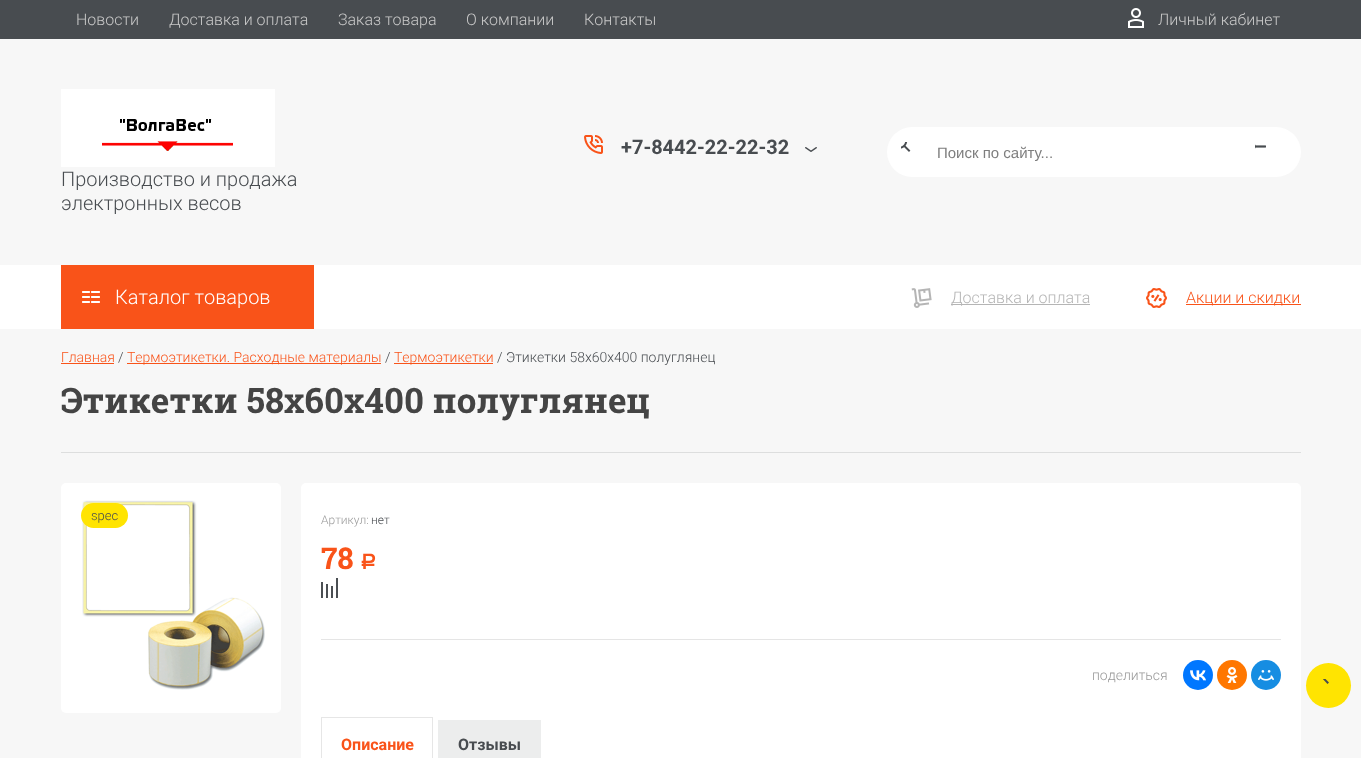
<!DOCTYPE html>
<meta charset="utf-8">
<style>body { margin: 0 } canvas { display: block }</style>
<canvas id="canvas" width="1361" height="758"></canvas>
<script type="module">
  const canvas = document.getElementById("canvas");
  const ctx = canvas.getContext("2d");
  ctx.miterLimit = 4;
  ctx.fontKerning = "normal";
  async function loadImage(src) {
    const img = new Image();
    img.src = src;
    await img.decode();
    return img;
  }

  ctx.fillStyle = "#f7f7f7";
  ctx.fillRect(0, 0, 1361, 758);
  ctx.fillStyle = "#484c50";
  ctx.fillRect(0, 0, 1361, 39);
  ctx.font = "300 16px Roboto";
  ctx.fillStyle = "#c8c8c8";
  ctx.fillText("Новости", 76, 25);
  ctx.fillText("Доставка и оплата", 169, 25);
  ctx.fillText("Заказ товара", 338, 25);
  ctx.fillText("О компании", 466, 25);
  ctx.fillText("Контакты", 584, 25);
  ctx.drawImage(await loadImage("img1.png"), 1128, 8, 16, 20);
  ctx.fillText("Личный кабинет", 1158, 25);
  ctx.drawImage(await loadImage("img2.png"), 584, 135, 19, 19);
  ctx.font = "bold 20px Roboto";
  ctx.fillStyle = "#484c50";
  ctx.fillText("+7-8442-22-22-32", 621, 154);
  ctx.drawImage(await loadImage("img3.png"), 805, 147, 12, 5);
  ctx.fillStyle = "#ffffff";
  ctx.beginPath();
  ctx.roundRect(887, 127, 414, 50, 25);
  ctx.fill();
  ctx.drawImage(await loadImage("img4.png"), 901, 142, 10, 10);
  ctx.font = "15px Liberation Sans";
  ctx.fillStyle = "#7e7e7e";
  ctx.fillText("Поиск по сайту...", 937, 158);
  ctx.drawImage(await loadImage("img5.png"), 1255, 144, 11, 5);
  ctx.drawImage(await loadImage("img6.png"), 61, 89, 214, 78);
  ctx.font = "300 20px Roboto";
  ctx.fillStyle = "#484c50";
  ctx.fillText("Производство и продажа", 61, 186);
  ctx.fillText("электронных весов", 61, 210);
  ctx.fillStyle = "#ffffff";
  ctx.fillRect(0, 265, 1361, 64);
  ctx.fillStyle = "#f95319";
  ctx.fillRect(61, 265, 253, 64);
  ctx.drawImage(await loadImage("img7.png"), 82, 291, 18, 12);
  ctx.fillStyle = "#ffffff";
  ctx.fillText("Каталог товаров", 115, 304);
  ctx.drawImage(await loadImage("img8.png"), 911, 288, 21, 20);
  ctx.fillStyle = "#b5b5b5";
  ctx.fillRect(951, 304, 139, 1);
  ctx.font = "300 16px Roboto";
  ctx.fillText("Доставка и оплата", 951, 303);
  ctx.drawImage(await loadImage("img9.png"), 1146, 288, 21, 20);
  ctx.fillStyle = "#f95319";
  ctx.fillRect(1186, 304, 115, 1);
  ctx.fillText("Акции и скидки", 1186, 303);
  ctx.font = "300 14px Roboto";
  ctx.fillText("Главная", 61, 362);
  ctx.fillRect(61, 363, 53, 1);
  ctx.fillStyle = "#484c50";
  ctx.fillText("/", 118, 362);
  ctx.fillStyle = "#f95319";
  ctx.fillRect(127, 363, 254, 1);
  ctx.fillText("Термоэтикетки. Расходные материалы", 127, 362);
  ctx.fillStyle = "#484c50";
  ctx.fillText("/", 385, 362);
  ctx.fillStyle = "#f95319";
  ctx.fillRect(394, 363, 99, 1);
  ctx.fillText("Термоэтикетки", 394, 362);
  ctx.fillStyle = "#484c50";
  ctx.fillText("/ Этикетки 58х60х400 полуглянец", 497, 362);
  ctx.fillStyle = "#dddede";
  ctx.fillRect(61, 452, 1240, 1);
  ctx.font = "bold 35px Roboto Slab";
  ctx.fillStyle = "#444444";
  ctx.fillText("Этикетки 58х60х400 полуглянец", 61, 413);
  ctx.fillStyle = "#ffffff";
  ctx.beginPath();
  ctx.roundRect(61, 483, 220, 230, 5);
  ctx.fill();
  ctx.drawImage(await loadImage("img10.png"), 82, 500, 183, 190);
  ctx.fillStyle = "#ffe401";
  ctx.beginPath();
  ctx.roundRect(81, 503, 47, 25, 12.5);
  ctx.fill();
  ctx.font = "300 13px Roboto";
  ctx.fillStyle = "#484c50";
  ctx.fillText("spec", 91, 520);
  ctx.fillStyle = "#ffffff";
  ctx.beginPath();
  ctx.roundRect(301, 483, 1000, 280, 5);
  ctx.fill();
  ctx.font = "300 12px Roboto";
  ctx.fillStyle = "#999999";
  ctx.fillText("Артикул:", 321, 524);
  ctx.fillStyle = "#484c50";
  ctx.fillText("нет", 371, 524);
  ctx.font = "bold 30px Roboto Slab";
  ctx.fillStyle = "#f95319";
  ctx.fillText("78", 321, 569);
  ctx.font = "bold 21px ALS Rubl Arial";
  ctx.fillText("Р", 360, 569);
  ctx.drawImage(await loadImage("img11.png"), 321, 578, 17, 20);
  ctx.fillStyle = "#e5e5e5";
  ctx.fillRect(321, 639, 960, 1);
  ctx.font = "300 14px Roboto";
  ctx.fillStyle = "#999999";
  ctx.fillText("поделиться", 1092, 680);
  ctx.fillStyle = "#0077ff";
  ctx.beginPath();
  ctx.arc(1198, 675, 15, 0, Math.PI * 2);
  ctx.fill();
  ctx.drawImage(await loadImage("img12.png"), 1190, 670, 16, 11);
  ctx.fillStyle = "#ff7700";
  ctx.beginPath();
  ctx.arc(1232, 675, 15, 0, Math.PI * 2);
  ctx.fill();
  ctx.drawImage(await loadImage("img13.png"), 1226, 667, 12, 16);
  ctx.fillStyle = "#168de2";
  ctx.beginPath();
  ctx.arc(1266, 675, 15, 0, Math.PI * 2);
  ctx.fill();
  ctx.drawImage(await loadImage("img14.png"), 1258, 670, 16, 11);
  ctx.fillStyle = "#e6e6e6";
  ctx.fillRect(321, 717, 112, 1);
  ctx.fillRect(432, 717, 1, 41);
  ctx.fillRect(321, 717, 1, 41);
  ctx.font = "bold 16px Roboto";
  ctx.fillStyle = "#f95319";
  ctx.fillText("Описание", 341, 750);
  ctx.fillStyle = "#eceded";
  ctx.fillRect(438, 720, 103, 38);
  ctx.fillStyle = "#484c50";
  ctx.fillText("Отзывы", 458, 750);
  ctx.fillStyle = "#ffe401";
  ctx.beginPath();
  ctx.arc(1328.5, 685.5, 22.5, 0, Math.PI * 2);
  ctx.fill();
  ctx.save();
  ctx.beginPath();
  ctx.rect(1320, 679, 18, 14);
  ctx.clip();
  ctx.fillStyle = "#484c50";
  ctx.beginPath();
  ctx.moveTo(1313, 684);
  ctx.lineTo(1311.5, 683);
  ctx.lineTo(1320.5, 674);
  ctx.lineTo(1329, 682.5);
  ctx.lineTo(1327.5, 684);
  ctx.lineTo(1320.5, 676.5);
  ctx.closePath();
  ctx.fill();
  ctx.restore();
</script>
